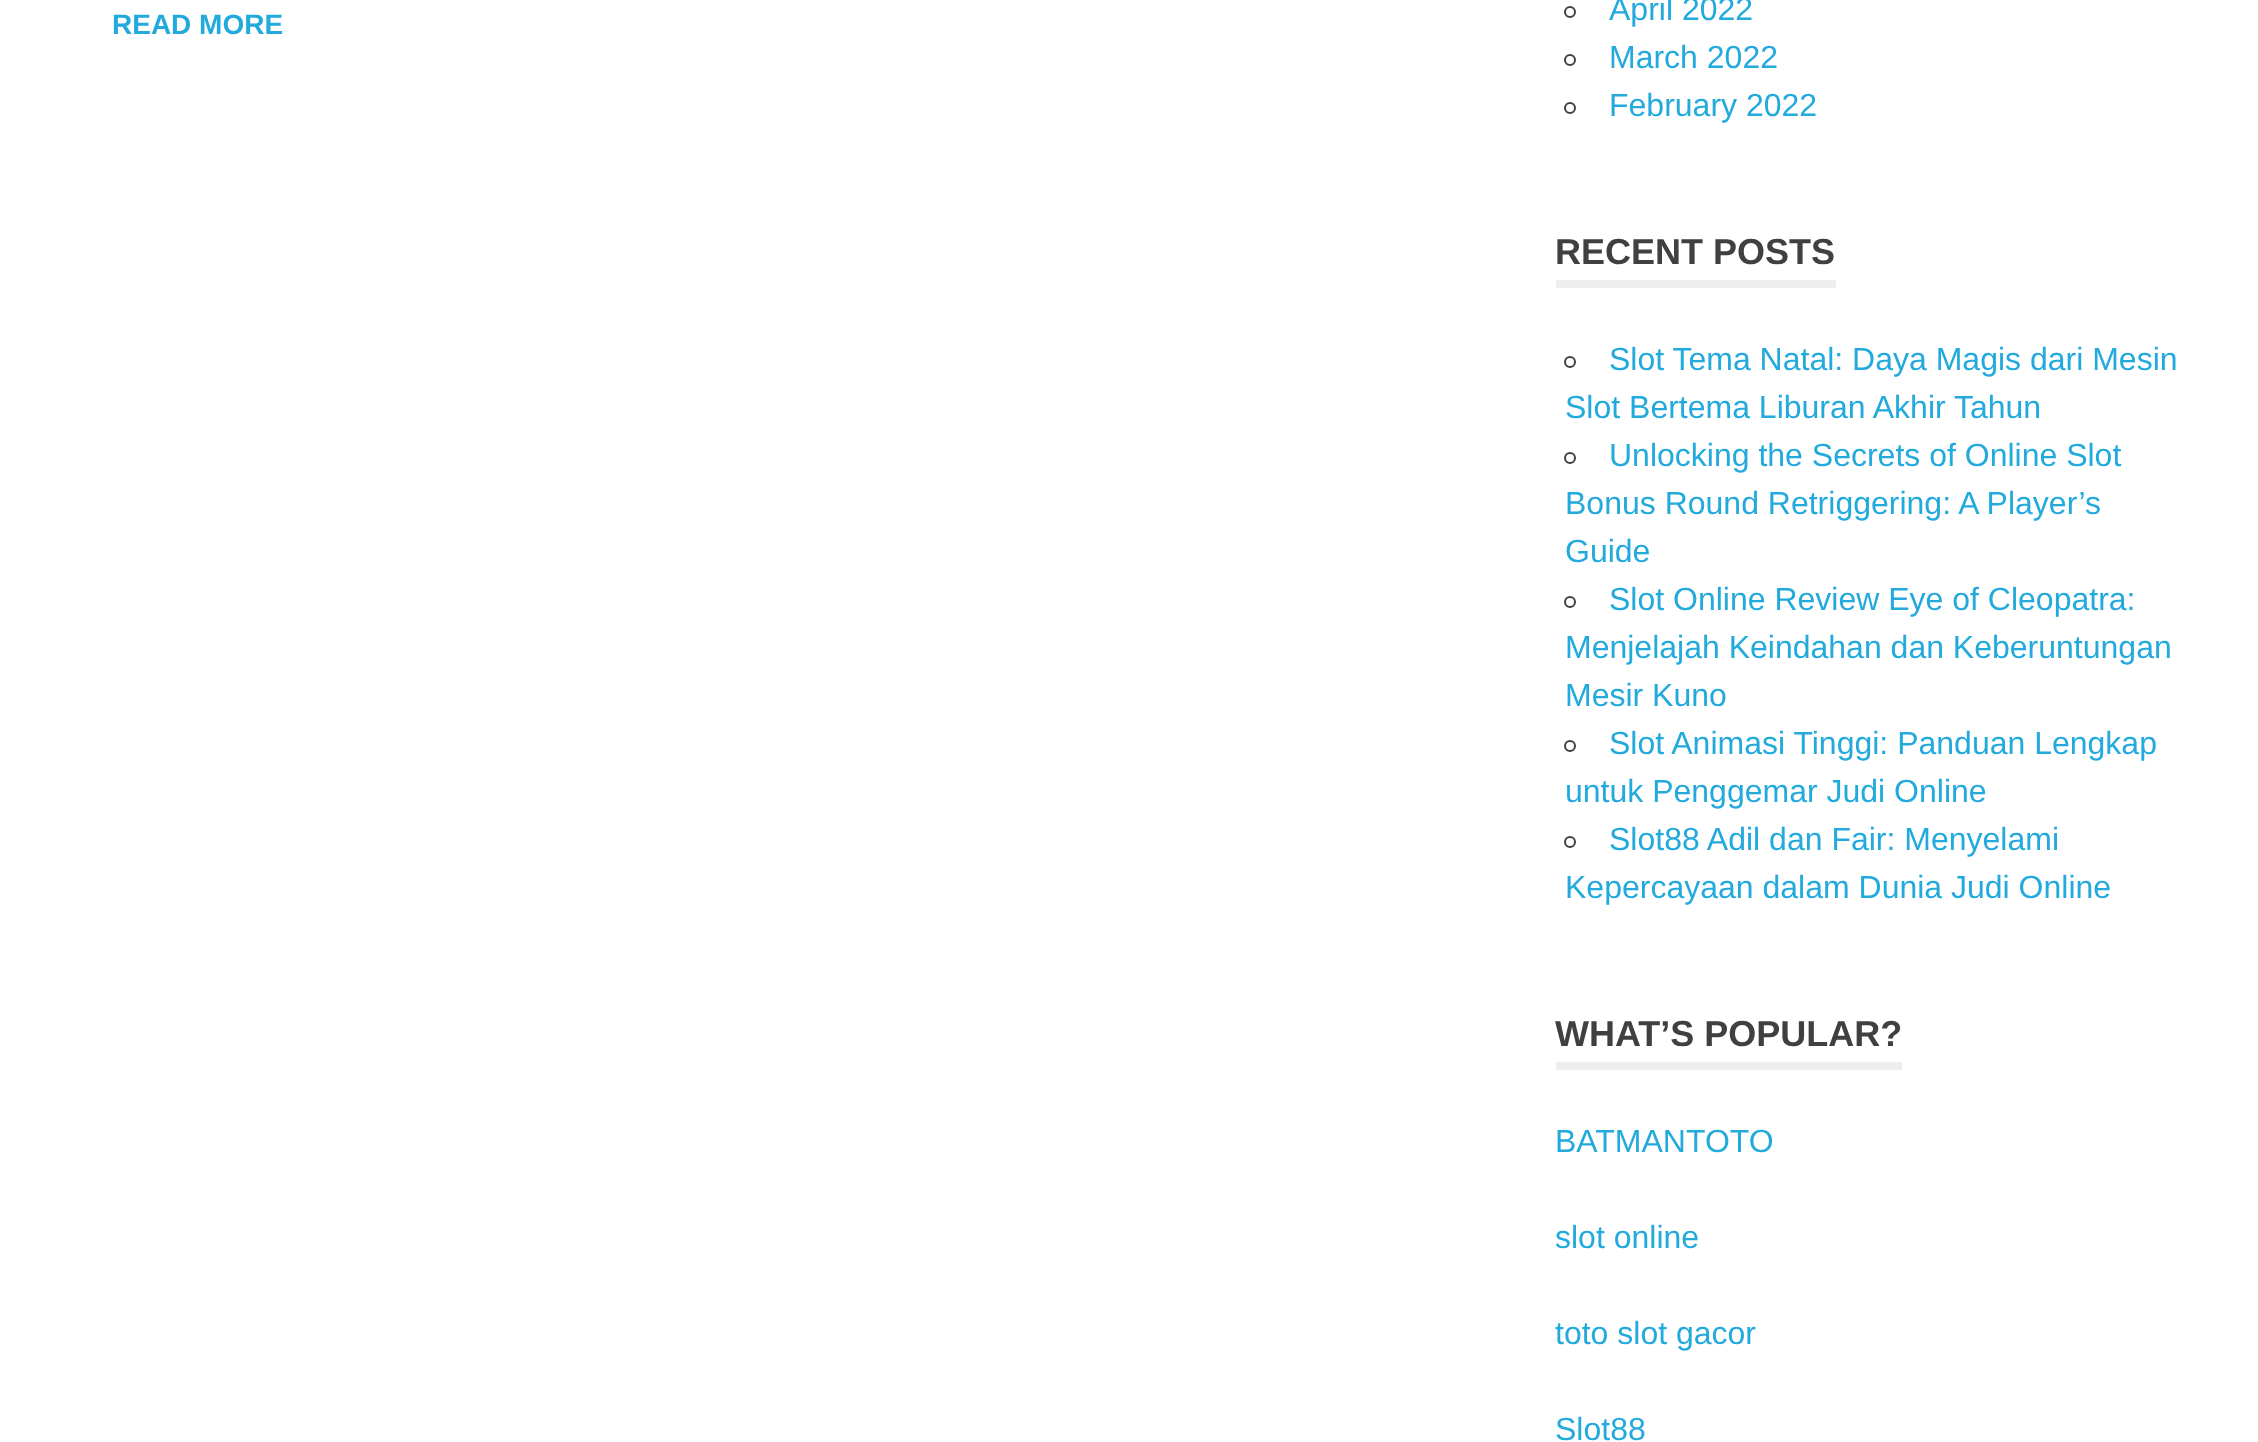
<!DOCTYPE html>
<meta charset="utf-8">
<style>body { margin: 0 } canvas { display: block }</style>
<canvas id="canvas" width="2258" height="1442"></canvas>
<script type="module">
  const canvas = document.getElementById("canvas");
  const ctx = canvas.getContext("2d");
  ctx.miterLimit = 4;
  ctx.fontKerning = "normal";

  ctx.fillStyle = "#ffffff";
  ctx.fillRect(0, 0, 2258, 1442);
  ctx.font = "bold 28px Liberation Sans";
  ctx.fillStyle = "#22aadd";
  ctx.fillText("READ MORE", 112, 34);
  ctx.beginPath();
  ctx.arc(1570, 12, 5, 0, Math.PI * 2);
  ctx.strokeStyle = "#404040";
  ctx.lineWidth = 2;
  ctx.stroke();
  ctx.font = "32px Liberation Sans";
  ctx.fillText("April 2022", 1609, 20);
  ctx.beginPath();
  ctx.arc(1570, 60, 5, 0, Math.PI * 2);
  ctx.stroke();
  ctx.fillText("March 2022", 1609, 68);
  ctx.beginPath();
  ctx.arc(1570, 108, 5, 0, Math.PI * 2);
  ctx.stroke();
  ctx.fillText("February 2022", 1609, 116);
  ctx.fillStyle = "#eeeeee";
  ctx.fillRect(1556, 280, 280, 8);
  ctx.font = "bold 36px Liberation Sans";
  ctx.fillStyle = "#404040";
  ctx.fillText("RECENT POSTS", 1555, 264);
  ctx.beginPath();
  ctx.arc(1570, 362, 5, 0, Math.PI * 2);
  ctx.stroke();
  ctx.font = "32px Liberation Sans";
  ctx.fillStyle = "#22aadd";
  ctx.fillText("Slot Tema Natal: Daya Magis dari Mesin", 1609, 370);
  ctx.fillText("Slot Bertema Liburan Akhir Tahun", 1565, 418);
  ctx.beginPath();
  ctx.arc(1570, 458, 5, 0, Math.PI * 2);
  ctx.stroke();
  ctx.fillText("Unlocking the Secrets of Online Slot", 1609, 466);
  ctx.fillText("Bonus Round Retriggering: A Player’s", 1565, 514);
  ctx.fillText("Guide", 1565, 562);
  ctx.beginPath();
  ctx.arc(1570, 602, 5, 0, Math.PI * 2);
  ctx.stroke();
  ctx.fillText("Slot Online Review Eye of Cleopatra:", 1609, 610);
  ctx.fillText("Menjelajah Keindahan dan Keberuntungan", 1565, 658);
  ctx.fillText("Mesir Kuno", 1565, 706);
  ctx.beginPath();
  ctx.arc(1570, 746, 5, 0, Math.PI * 2);
  ctx.stroke();
  ctx.fillText("Slot Animasi Tinggi: Panduan Lengkap", 1609, 754);
  ctx.fillText("untuk Penggemar Judi Online", 1565, 802);
  ctx.beginPath();
  ctx.arc(1570, 842, 5, 0, Math.PI * 2);
  ctx.stroke();
  ctx.fillText("Slot88 Adil dan Fair: Menyelami", 1609, 850);
  ctx.fillText("Kepercayaan dalam Dunia Judi Online", 1565, 898);
  ctx.fillStyle = "#eeeeee";
  ctx.fillRect(1556, 1062, 346, 8);
  ctx.font = "bold 36px Liberation Sans";
  ctx.fillStyle = "#404040";
  ctx.fillText("WHAT’S POPULAR?", 1555, 1046);
  ctx.font = "32px Liberation Sans";
  ctx.fillStyle = "#22aadd";
  ctx.fillText("BATMANTOTO", 1555, 1152);
  ctx.fillText("slot online", 1555, 1248);
  ctx.fillText("toto slot gacor", 1555, 1344);
  ctx.fillText("Slot88", 1555, 1440);
</script>
